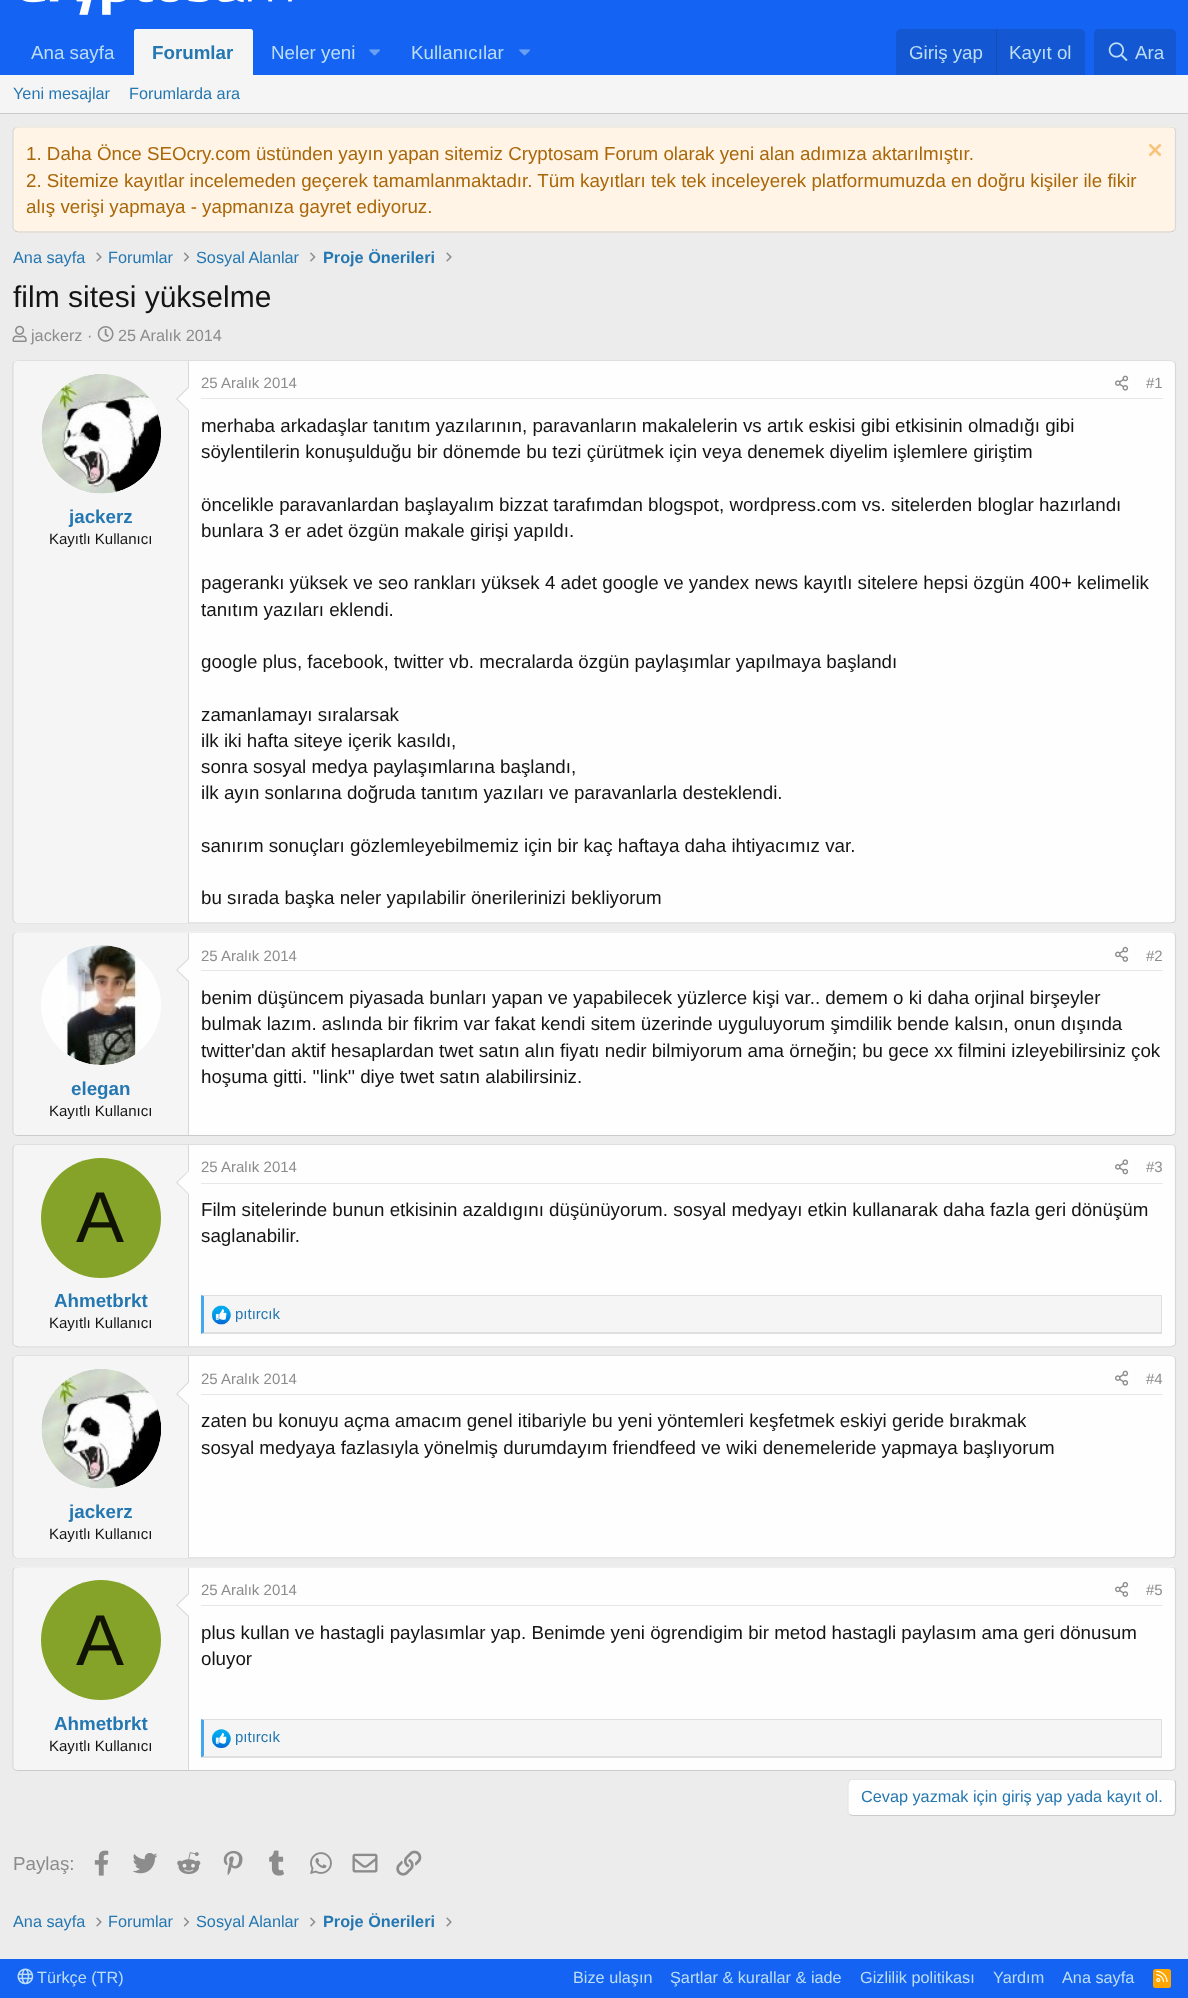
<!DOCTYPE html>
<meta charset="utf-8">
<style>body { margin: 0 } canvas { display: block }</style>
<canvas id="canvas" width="1188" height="1998"></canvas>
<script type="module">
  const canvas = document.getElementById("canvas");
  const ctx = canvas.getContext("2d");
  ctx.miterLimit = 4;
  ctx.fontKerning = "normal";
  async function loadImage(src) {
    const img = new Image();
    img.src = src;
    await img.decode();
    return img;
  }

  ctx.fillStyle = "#ececec";
  ctx.fillRect(0, 0, 1188, 1998);
  ctx.fillStyle = "#1463f3";
  ctx.fillRect(0, 0, 1188, 75);
  ctx.drawImage(await loadImage("img1.png"), 22, 0, 270, 15);
  ctx.font = "18.75px Liberation Sans";
  ctx.fillStyle = "#bcdef5";
  ctx.fillText("Ana sayfa", 31, 59);
  ctx.fillStyle = "#f5f5f5";
  ctx.beginPath();
  ctx.roundRect(134, 29, 119, 46, [2.5, 2.5, 0, 0]);
  ctx.fill();
  ctx.font = "bold 18.75px Liberation Sans";
  ctx.fillStyle = "#2577b1";
  ctx.fillText("Forumlar", 152, 59);
  ctx.font = "18.75px Liberation Sans";
  ctx.fillStyle = "#bcdef5";
  ctx.fillText("Neler yeni", 271, 59);
  ctx.drawImage(await loadImage("img2.png"), 369, 49, 11, 7);
  ctx.fillText("Kullanıcılar", 411, 59);
  ctx.drawImage(await loadImage("img2.png"), 519, 49, 11, 7);
  ctx.fillStyle = "#1457d2";
  ctx.beginPath();
  ctx.roundRect(896, 29, 189, 46, [5, 5, 0, 0]);
  ctx.fill();
  ctx.fillStyle = "#bcdef5";
  ctx.fillText("Giriş yap", 909, 59);
  ctx.fillStyle = "#144db6";
  ctx.fillRect(996, 29, 1, 46);
  ctx.fillStyle = "#bcdef5";
  ctx.fillText("Kayıt ol", 1009, 59);
  ctx.fillStyle = "#1457d2";
  ctx.beginPath();
  ctx.roundRect(1094, 29, 82, 46, [5, 5, 0, 0]);
  ctx.fill();
  ctx.drawImage(await loadImage("img3.png"), 1108, 42, 20, 19);
  ctx.fillStyle = "#bcdef5";
  ctx.fillText("Ara", 1135, 59);
  ctx.fillStyle = "#f5f5f5";
  ctx.fillRect(0, 75, 1188, 38);
  ctx.fillStyle = "#cbcbcb";
  ctx.fillRect(0, 113, 1188, 1);
  ctx.font = "16.25px Liberation Sans";
  ctx.fillStyle = "#2577b1";
  ctx.fillText("Yeni mesajlar", 13, 99);
  ctx.fillText("Forumlarda ara", 129, 99);
  ctx.fillStyle = "#fff4e5";
  ctx.beginPath();
  ctx.roundRect(13, 126, 1163, 107, 5);
  ctx.fill();
  ctx.beginPath();
  ctx.moveTo(14.5, 128);
  ctx.lineTo(17.5, 127);
  ctx.lineTo(1171, 127);
  ctx.lineTo(1174.5, 128);
  ctx.strokeStyle = "#dfdfdf";
  ctx.lineWidth = 1.2;
  ctx.stroke();
  ctx.beginPath();
  ctx.moveTo(1174.5, 128);
  ctx.lineTo(1175.5, 131);
  ctx.lineTo(1175.5, 228);
  ctx.lineTo(1174.5, 230.5);
  ctx.strokeStyle = "#d8d8d8";
  ctx.stroke();
  ctx.beginPath();
  ctx.moveTo(1174.5, 230.5);
  ctx.lineTo(1171, 232);
  ctx.lineTo(17.5, 232);
  ctx.lineTo(14.5, 230.5);
  ctx.strokeStyle = "#cbcbcb";
  ctx.stroke();
  ctx.beginPath();
  ctx.moveTo(14.5, 230.5);
  ctx.lineTo(13, 228);
  ctx.lineTo(13, 131);
  ctx.lineTo(14.5, 128);
  ctx.strokeStyle = "#d8d8d8";
  ctx.stroke();
  ctx.font = "18.75px Liberation Sans";
  ctx.fillStyle = "#aa6709";
  ctx.fillText("1. Daha Önce SEOcry.com üstünden yayın yapan sitemiz Cryptosam Forum olarak yeni alan adımıza aktarılmıştır.", 26, 160);
  ctx.drawImage(await loadImage("img4.png"), 1148, 143, 14, 14);
  ctx.fillText("2. Sitemize kayıtlar incelemeden geçerek tamamlanmaktadır. Tüm kayıtları tek tek inceleyerek platformumuzda en doğru kişiler ile fikir", 26, 187);
  ctx.fillText("alış verişi yapmaya - yapmanıza gayret ediyoruz.", 26, 213);
  ctx.font = "16.25px Liberation Sans";
  ctx.fillStyle = "#2577b1";
  ctx.fillText("Ana sayfa", 13, 263);
  ctx.drawImage(await loadImage("img5.png"), 96, 252, 6, 10);
  ctx.fillText("Forumlar", 108, 263);
  ctx.drawImage(await loadImage("img6.png"), 183, 252, 7, 10);
  ctx.fillText("Sosyal Alanlar", 196, 263);
  ctx.drawImage(await loadImage("img7.png"), 310, 252, 6, 10);
  ctx.font = "bold 16.25px Liberation Sans";
  ctx.fillText("Proje Önerileri", 323, 263);
  ctx.drawImage(await loadImage("img5.png"), 446, 252, 6, 10);
  ctx.font = "30px Liberation Sans";
  ctx.fillStyle = "#141414";
  ctx.fillText("film sitesi yükselme", 13, 307);
  ctx.drawImage(await loadImage("img8.png"), 12, 325, 15, 17);
  ctx.font = "16.25px Liberation Sans";
  ctx.fillStyle = "#8c8c8c";
  ctx.fillText("jackerz ·", 31, 341);
  ctx.drawImage(await loadImage("img9.png"), 97, 326, 17, 16);
  ctx.fillText("25 Aralık 2014", 118, 341);
  ctx.fillStyle = "#fefefe";
  ctx.beginPath();
  ctx.roundRect(13, 360, 1163, 564, 5);
  ctx.fill();
  ctx.beginPath();
  ctx.moveTo(14.5, 362);
  ctx.lineTo(17.5, 360.5);
  ctx.lineTo(1171, 360.5);
  ctx.lineTo(1174.5, 362);
  ctx.strokeStyle = "#dfdfdf";
  ctx.stroke();
  ctx.beginPath();
  ctx.moveTo(1174.5, 362);
  ctx.bezierCurveTo(1175, 362.5, 1175.5, 364, 1175.5, 365);
  ctx.lineTo(1175.5, 919);
  ctx.bezierCurveTo(1175.5, 920, 1175, 921, 1174.5, 922);
  ctx.strokeStyle = "#d8d8d8";
  ctx.stroke();
  ctx.beginPath();
  ctx.moveTo(1174.5, 922);
  ctx.lineTo(1171, 923);
  ctx.lineTo(17.5, 923);
  ctx.lineTo(14.5, 922);
  ctx.strokeStyle = "#cbcbcb";
  ctx.stroke();
  ctx.beginPath();
  ctx.moveTo(14.5, 922);
  ctx.bezierCurveTo(13.5, 921, 13, 920, 13, 919);
  ctx.lineTo(13, 365);
  ctx.bezierCurveTo(13, 364, 13.5, 362.5, 14.5, 362);
  ctx.strokeStyle = "#d8d8d8";
  ctx.stroke();
  ctx.fillStyle = "#f5f5f5";
  ctx.beginPath();
  ctx.roundRect(14, 361, 175, 562, [4, 0, 0, 4]);
  ctx.fill();
  ctx.fillStyle = "#d8d8d8";
  ctx.fillRect(188, 361, 1, 562);
  ctx.fillStyle = "#fefefe";
  ctx.beginPath();
  ctx.arc(101, 434, 60, 0, Math.PI * 2);
  ctx.fill();
  ctx.drawImage(await loadImage("img10.png"), 41, 374, 120, 120);
  ctx.fillStyle = "#d8d8d8";
  ctx.beginPath();
  ctx.moveTo(189, 386);
  ctx.lineTo(189, 411);
  ctx.lineTo(176, 399);
  ctx.closePath();
  ctx.fill();
  ctx.fillStyle = "#fefefe";
  ctx.beginPath();
  ctx.moveTo(189, 387.5);
  ctx.lineTo(189, 410);
  ctx.lineTo(177.5, 399);
  ctx.closePath();
  ctx.fill();
  ctx.font = "bold 18.75px Liberation Sans";
  ctx.fillStyle = "#2577b1";
  ctx.fillText("jackerz", 69, 523);
  ctx.font = "15px Liberation Sans";
  ctx.fillStyle = "#141414";
  ctx.fillText("Kayıtlı Kullanıcı", 49, 544);
  ctx.fillStyle = "#e7e7e7";
  ctx.fillRect(201, 398, 962, 1);
  ctx.fillStyle = "#8c8c8c";
  ctx.fillText("25 Aralık 2014", 201, 388);
  ctx.drawImage(await loadImage("img11.png"), 1115, 375, 14, 16);
  ctx.fillText("#1", 1146, 388);
  ctx.font = "18.75px Liberation Sans";
  ctx.fillStyle = "#141414";
  ctx.fillText("merhaba arkadaşlar tanıtım yazılarının, paravanların makalelerin vs artık eskisi gibi etkisinin olmadığı gibi", 201, 432);
  ctx.fillText("söylentilerin konuşulduğu bir dönemde bu tezi çürütmek için veya denemek diyelim işlemlere giriştim", 201, 458);
  ctx.fillText("öncelikle paravanlardan başlayalım bizzat tarafımdan blogspot, wordpress.com vs. sitelerden bloglar hazırlandı", 201, 511);
  ctx.fillText("bunlara 3 er adet özgün makale girişi yapıldı.", 201, 537);
  ctx.fillText("pagerankı yüksek ve seo rankları yüksek 4 adet google ve yandex news kayıtlı sitelere hepsi özgün 400+ kelimelik", 201, 589);
  ctx.fillText("tanıtım yazıları eklendi.", 201, 616);
  ctx.fillText("google plus, facebook, twitter vb. mecralarda özgün paylaşımlar yapılmaya başlandı", 201, 668);
  ctx.fillText("zamanlamayı sıralarsak", 201, 721);
  ctx.fillText("ilk iki hafta siteye içerik kasıldı,", 201, 747);
  ctx.fillText("sonra sosyal medya paylaşımlarına başlandı,", 201, 773);
  ctx.fillText("ilk ayın sonlarına doğruda tanıtım yazıları ve paravanlarla desteklendi.", 201, 799);
  ctx.fillText("sanırım sonuçları gözlemleyebilmemiz için bir kaç haftaya daha ihtiyacımız var.", 201, 852);
  ctx.fillText("bu sırada başka neler yapılabilir önerilerinizi bekliyorum", 201, 904);
  ctx.fillStyle = "#fefefe";
  ctx.beginPath();
  ctx.roundRect(13, 931, 1163, 205, 5);
  ctx.fill();
  ctx.beginPath();
  ctx.moveTo(14.5, 933);
  ctx.lineTo(17.5, 932);
  ctx.lineTo(1171, 932);
  ctx.lineTo(1174.5, 933);
  ctx.strokeStyle = "#dfdfdf";
  ctx.stroke();
  ctx.beginPath();
  ctx.moveTo(1174.5, 933);
  ctx.bezierCurveTo(1175, 934, 1175.5, 935, 1175.5, 936);
  ctx.lineTo(1175.5, 1131);
  ctx.bezierCurveTo(1175.5, 1132.5, 1175, 1133.5, 1174.5, 1134.5);
  ctx.strokeStyle = "#d8d8d8";
  ctx.stroke();
  ctx.beginPath();
  ctx.moveTo(1174.5, 1134.5);
  ctx.lineTo(1171, 1135.5);
  ctx.lineTo(17.5, 1135.5);
  ctx.lineTo(14.5, 1134.5);
  ctx.strokeStyle = "#cbcbcb";
  ctx.stroke();
  ctx.beginPath();
  ctx.moveTo(14.5, 1134.5);
  ctx.bezierCurveTo(13.5, 1133.5, 13, 1132.5, 13, 1131);
  ctx.lineTo(13, 936);
  ctx.bezierCurveTo(13, 935, 13.5, 934, 14.5, 933);
  ctx.strokeStyle = "#d8d8d8";
  ctx.stroke();
  ctx.fillStyle = "#e7e7e7";
  ctx.fillRect(201, 970, 962, 1);
  ctx.font = "15px Liberation Sans";
  ctx.fillStyle = "#8c8c8c";
  ctx.fillText("25 Aralık 2014", 201, 961);
  ctx.drawImage(await loadImage("img12.png"), 1115, 946, 14, 16);
  ctx.fillText("#2", 1146, 961);
  ctx.font = "18.75px Liberation Sans";
  ctx.fillStyle = "#141414";
  ctx.fillText("benim düşüncem piyasada bunları yapan ve yapabilecek yüzlerce kişi var.. demem o ki daha orjinal birşeyler", 201, 1004);
  ctx.fillText("bulmak lazım. aslında bir fikrim var fakat kendi sitem üzerinde uyguluyorum şimdilik bende kalsın, onun dışında", 201, 1030);
  ctx.fillText("twitter'dan aktif hesaplardan twet satın alın fiyatı nedir bilmiyorum ama örneğin; bu gece xx filmini izleyebilirsiniz çok", 201, 1057);
  ctx.fillText("hoşuma gitti. ''link'' diye twet satın alabilirsiniz.", 201, 1083);
  ctx.fillStyle = "#f5f5f5";
  ctx.beginPath();
  ctx.roundRect(14, 933, 175, 202, [4, 0, 0, 4]);
  ctx.fill();
  ctx.fillStyle = "#d8d8d8";
  ctx.fillRect(188, 933, 1, 202);
  ctx.fillStyle = "#fefefe";
  ctx.beginPath();
  ctx.arc(101, 1005, 60, 0, Math.PI * 2);
  ctx.fill();
  ctx.drawImage(await loadImage("img13.png"), 62, 945, 79, 120);
  ctx.fillStyle = "#d8d8d8";
  ctx.beginPath();
  ctx.moveTo(189, 957.5);
  ctx.lineTo(189, 982.5);
  ctx.lineTo(176, 970);
  ctx.closePath();
  ctx.fill();
  ctx.fillStyle = "#fefefe";
  ctx.beginPath();
  ctx.moveTo(189, 959);
  ctx.lineTo(189, 981);
  ctx.lineTo(177.5, 970);
  ctx.closePath();
  ctx.fill();
  ctx.font = "bold 18.75px Liberation Sans";
  ctx.fillStyle = "#2577b1";
  ctx.fillText("elegan", 71, 1095);
  ctx.font = "15px Liberation Sans";
  ctx.fillStyle = "#141414";
  ctx.fillText("Kayıtlı Kullanıcı", 49, 1116);
  ctx.fillStyle = "#fefefe";
  ctx.beginPath();
  ctx.roundRect(13, 1144, 1163, 204, 5);
  ctx.fill();
  ctx.beginPath();
  ctx.moveTo(14.5, 1145.5);
  ctx.lineTo(17.5, 1144.5);
  ctx.lineTo(1171, 1144.5);
  ctx.lineTo(1174.5, 1145.5);
  ctx.strokeStyle = "#dfdfdf";
  ctx.stroke();
  ctx.beginPath();
  ctx.moveTo(1174.5, 1145.5);
  ctx.bezierCurveTo(1175, 1146.5, 1175.5, 1147.5, 1175.5, 1149);
  ctx.lineTo(1175.5, 1342.5);
  ctx.bezierCurveTo(1175.5, 1343.5, 1175, 1345, 1174.5, 1345.5);
  ctx.strokeStyle = "#d8d8d8";
  ctx.stroke();
  ctx.beginPath();
  ctx.moveTo(1174.5, 1345.5);
  ctx.lineTo(1171, 1347);
  ctx.lineTo(17.5, 1347);
  ctx.lineTo(14.5, 1345.5);
  ctx.strokeStyle = "#cbcbcb";
  ctx.stroke();
  ctx.beginPath();
  ctx.moveTo(14.5, 1345.5);
  ctx.bezierCurveTo(13.5, 1345, 13, 1343.5, 13, 1342.5);
  ctx.lineTo(13, 1149);
  ctx.bezierCurveTo(13, 1147.5, 13.5, 1146.5, 14.5, 1145.5);
  ctx.strokeStyle = "#d8d8d8";
  ctx.stroke();
  ctx.fillStyle = "#f5f5f5";
  ctx.beginPath();
  ctx.roundRect(14, 1145, 175, 201, [4, 0, 0, 4]);
  ctx.fill();
  ctx.fillStyle = "#d8d8d8";
  ctx.fillRect(188, 1145, 1, 201);
  ctx.beginPath();
  ctx.moveTo(189, 1170);
  ctx.lineTo(189, 1195);
  ctx.lineTo(176, 1182.5);
  ctx.closePath();
  ctx.fill();
  ctx.fillStyle = "#fefefe";
  ctx.beginPath();
  ctx.moveTo(189, 1171);
  ctx.lineTo(189, 1194);
  ctx.lineTo(177.5, 1182.5);
  ctx.closePath();
  ctx.fill();
  ctx.fillStyle = "#85a329";
  ctx.beginPath();
  ctx.arc(101, 1218, 60, 0, Math.PI * 2);
  ctx.fill();
  ctx.font = "72px Liberation Sans";
  ctx.fillStyle = "#111405";
  ctx.fillText("A", 76, 1242);
  ctx.font = "bold 18.75px Liberation Sans";
  ctx.fillStyle = "#2577b1";
  ctx.fillText("Ahmetbrkt", 54, 1307);
  ctx.font = "15px Liberation Sans";
  ctx.fillStyle = "#141414";
  ctx.fillText("Kayıtlı Kullanıcı", 49, 1328);
  ctx.fillStyle = "#e7e7e7";
  ctx.fillRect(201, 1183, 962, 1);
  ctx.fillStyle = "#8c8c8c";
  ctx.fillText("25 Aralık 2014", 201, 1172);
  ctx.drawImage(await loadImage("img14.png"), 1115, 1159, 14, 16);
  ctx.fillText("#3", 1146, 1172);
  ctx.font = "18.75px Liberation Sans";
  ctx.fillStyle = "#141414";
  ctx.fillText("Film sitelerinde bunun etkisinin azaldıgını düşünüyorum. sosyal medyayı etkin kullanarak daha fazla geri dönüşüm", 201, 1216);
  ctx.fillText("saglanabilir.", 201, 1242);
  ctx.fillStyle = "#f5f5f5";
  ctx.fillRect(204, 1296, 957, 36);
  ctx.fillStyle = "#dfdfdf";
  ctx.beginPath();
  ctx.moveTo(201, 1295);
  ctx.lineTo(1162, 1295);
  ctx.lineTo(1161, 1296);
  ctx.lineTo(204, 1296);
  ctx.closePath();
  ctx.fill();
  ctx.fillRect(1161, 1295, 1, 39);
  ctx.beginPath();
  ctx.moveTo(1162, 1334);
  ctx.lineTo(201, 1334);
  ctx.lineTo(204, 1332);
  ctx.lineTo(1161, 1332);
  ctx.closePath();
  ctx.fill();
  ctx.fillStyle = "#47a7eb";
  ctx.beginPath();
  ctx.moveTo(201, 1334);
  ctx.lineTo(201, 1295);
  ctx.lineTo(204, 1296);
  ctx.lineTo(204, 1332.5);
  ctx.closePath();
  ctx.fill();
  ctx.drawImage(await loadImage("img15.png"), 212, 1305, 19, 20);
  ctx.font = "15px Liberation Sans";
  ctx.fillStyle = "#2577b1";
  ctx.fillText("pıtırcık", 235, 1319);
  ctx.fillStyle = "#fefefe";
  ctx.beginPath();
  ctx.roundRect(13, 1355, 1163, 204, 5);
  ctx.fill();
  ctx.beginPath();
  ctx.moveTo(14.5, 1357);
  ctx.lineTo(17.5, 1355.5);
  ctx.lineTo(1171, 1355.5);
  ctx.lineTo(1174.5, 1357);
  ctx.strokeStyle = "#dfdfdf";
  ctx.stroke();
  ctx.beginPath();
  ctx.moveTo(1174.5, 1357);
  ctx.bezierCurveTo(1175, 1357.5, 1175.5, 1359, 1175.5, 1360);
  ctx.lineTo(1175.5, 1554);
  ctx.bezierCurveTo(1175.5, 1555, 1175, 1556, 1174.5, 1557);
  ctx.strokeStyle = "#d8d8d8";
  ctx.stroke();
  ctx.beginPath();
  ctx.moveTo(1174.5, 1557);
  ctx.lineTo(1171, 1558);
  ctx.lineTo(17.5, 1558);
  ctx.lineTo(14.5, 1557);
  ctx.strokeStyle = "#cbcbcb";
  ctx.stroke();
  ctx.beginPath();
  ctx.moveTo(14.5, 1557);
  ctx.bezierCurveTo(13.5, 1556, 13, 1555, 13, 1554);
  ctx.lineTo(13, 1360);
  ctx.bezierCurveTo(13, 1359, 13.5, 1357.5, 14.5, 1357);
  ctx.strokeStyle = "#d8d8d8";
  ctx.stroke();
  ctx.fillStyle = "#e7e7e7";
  ctx.fillRect(201, 1394, 962, 1);
  ctx.fillStyle = "#8c8c8c";
  ctx.fillText("25 Aralık 2014", 201, 1384);
  ctx.drawImage(await loadImage("img11.png"), 1115, 1370, 14, 16);
  ctx.fillText("#4", 1146, 1384);
  ctx.font = "18.75px Liberation Sans";
  ctx.fillStyle = "#141414";
  ctx.fillText("zaten bu konuyu açma amacım genel itibariyle bu yeni yöntemleri keşfetmek eskiyi geride bırakmak", 201, 1427);
  ctx.fillText("sosyal medyaya fazlasıyla yönelmiş durumdayım friendfeed ve wiki denemeleride yapmaya başlıyorum", 201, 1454);
  ctx.fillStyle = "#f5f5f5";
  ctx.beginPath();
  ctx.roundRect(14, 1356, 175, 202, [4, 0, 0, 4]);
  ctx.fill();
  ctx.fillStyle = "#d8d8d8";
  ctx.fillRect(188, 1356, 1, 202);
  ctx.fillStyle = "#fefefe";
  ctx.beginPath();
  ctx.arc(101, 1429, 60, 0, Math.PI * 2);
  ctx.fill();
  ctx.drawImage(await loadImage("img16.png"), 41, 1369, 120, 120);
  ctx.fillStyle = "#d8d8d8";
  ctx.beginPath();
  ctx.moveTo(189, 1381);
  ctx.lineTo(189, 1406);
  ctx.lineTo(176, 1394);
  ctx.closePath();
  ctx.fill();
  ctx.fillStyle = "#fefefe";
  ctx.beginPath();
  ctx.moveTo(189, 1382.5);
  ctx.lineTo(189, 1405);
  ctx.lineTo(177.5, 1394);
  ctx.closePath();
  ctx.fill();
  ctx.font = "bold 18.75px Liberation Sans";
  ctx.fillStyle = "#2577b1";
  ctx.fillText("jackerz", 69, 1518);
  ctx.font = "15px Liberation Sans";
  ctx.fillStyle = "#141414";
  ctx.fillText("Kayıtlı Kullanıcı", 49, 1539);
  ctx.fillStyle = "#fefefe";
  ctx.beginPath();
  ctx.roundRect(13, 1566, 1163, 205, 5);
  ctx.fill();
  ctx.beginPath();
  ctx.moveTo(14.5, 1568);
  ctx.lineTo(17.5, 1567);
  ctx.lineTo(1171, 1567);
  ctx.lineTo(1174.5, 1568);
  ctx.strokeStyle = "#dfdfdf";
  ctx.stroke();
  ctx.beginPath();
  ctx.moveTo(1174.5, 1568);
  ctx.bezierCurveTo(1175, 1569, 1175.5, 1570, 1175.5, 1571);
  ctx.lineTo(1175.5, 1766);
  ctx.bezierCurveTo(1175.5, 1767.5, 1175, 1768.5, 1174.5, 1769.5);
  ctx.strokeStyle = "#d8d8d8";
  ctx.stroke();
  ctx.beginPath();
  ctx.moveTo(1174.5, 1769.5);
  ctx.lineTo(1171, 1770.5);
  ctx.lineTo(17.5, 1770.5);
  ctx.lineTo(14.5, 1769.5);
  ctx.strokeStyle = "#cbcbcb";
  ctx.stroke();
  ctx.beginPath();
  ctx.moveTo(14.5, 1769.5);
  ctx.bezierCurveTo(13.5, 1768.5, 13, 1767.5, 13, 1766);
  ctx.lineTo(13, 1571);
  ctx.bezierCurveTo(13, 1570, 13.5, 1569, 14.5, 1568);
  ctx.strokeStyle = "#d8d8d8";
  ctx.stroke();
  ctx.fillStyle = "#f5f5f5";
  ctx.beginPath();
  ctx.roundRect(14, 1568, 175, 202, [4, 0, 0, 4]);
  ctx.fill();
  ctx.fillStyle = "#d8d8d8";
  ctx.fillRect(188, 1568, 1, 202);
  ctx.beginPath();
  ctx.moveTo(189, 1592.5);
  ctx.lineTo(189, 1617.5);
  ctx.lineTo(176, 1605);
  ctx.closePath();
  ctx.fill();
  ctx.fillStyle = "#fefefe";
  ctx.beginPath();
  ctx.moveTo(189, 1594);
  ctx.lineTo(189, 1616);
  ctx.lineTo(177.5, 1605);
  ctx.closePath();
  ctx.fill();
  ctx.fillStyle = "#85a329";
  ctx.beginPath();
  ctx.arc(101, 1640, 60, 0, Math.PI * 2);
  ctx.fill();
  ctx.font = "72px Liberation Sans";
  ctx.fillStyle = "#111405";
  ctx.fillText("A", 76, 1665);
  ctx.font = "bold 18.75px Liberation Sans";
  ctx.fillStyle = "#2577b1";
  ctx.fillText("Ahmetbrkt", 54, 1730);
  ctx.font = "15px Liberation Sans";
  ctx.fillStyle = "#141414";
  ctx.fillText("Kayıtlı Kullanıcı", 49, 1751);
  ctx.fillStyle = "#e7e7e7";
  ctx.fillRect(201, 1605, 962, 1);
  ctx.fillStyle = "#8c8c8c";
  ctx.fillText("25 Aralık 2014", 201, 1595);
  ctx.drawImage(await loadImage("img12.png"), 1115, 1581, 14, 16);
  ctx.fillText("#5", 1146, 1595);
  ctx.font = "18.75px Liberation Sans";
  ctx.fillStyle = "#141414";
  ctx.fillText("plus kullan ve hastagli paylasımlar yap. Benimde yeni ögrendigim bir metod hastagli paylasım ama geri dönusum", 201, 1639);
  ctx.fillText("oluyor", 201, 1665);
  ctx.fillStyle = "#f5f5f5";
  ctx.fillRect(204, 1720, 957, 36);
  ctx.fillStyle = "#dfdfdf";
  ctx.beginPath();
  ctx.moveTo(201, 1719);
  ctx.lineTo(1162, 1719);
  ctx.lineTo(1161, 1720);
  ctx.lineTo(204, 1720);
  ctx.closePath();
  ctx.fill();
  ctx.fillRect(1161, 1719, 1, 39);
  ctx.beginPath();
  ctx.moveTo(1162, 1758);
  ctx.lineTo(201, 1758);
  ctx.lineTo(204, 1756);
  ctx.lineTo(1161, 1756);
  ctx.closePath();
  ctx.fill();
  ctx.fillStyle = "#47a7eb";
  ctx.beginPath();
  ctx.moveTo(201, 1757.5);
  ctx.lineTo(201, 1719);
  ctx.lineTo(204, 1720);
  ctx.lineTo(204, 1756);
  ctx.closePath();
  ctx.fill();
  ctx.drawImage(await loadImage("img17.png"), 212, 1729, 19, 19);
  ctx.font = "15px Liberation Sans";
  ctx.fillStyle = "#2577b1";
  ctx.fillText("pıtırcık", 235, 1742);
  ctx.fillStyle = "#fefefe";
  ctx.beginPath();
  ctx.roundRect(848, 1779, 328, 37, 5);
  ctx.fill();
  ctx.beginPath();
  ctx.moveTo(1174.5, 1780.5);
  ctx.bezierCurveTo(1176.5, 1782.5, 1175.5, 1786, 1175.5, 1788.5);
  ctx.lineTo(1175.5, 1806.5);
  ctx.bezierCurveTo(1175.5, 1809.5, 1176.5, 1814, 1173, 1815.5);
  ctx.lineTo(852.5, 1815.5);
  ctx.lineTo(849.5, 1814.5);
  ctx.strokeStyle = "#cbcbcb";
  ctx.stroke();
  ctx.beginPath();
  ctx.moveTo(849.5, 1814.5);
  ctx.bezierCurveTo(847.5, 1812.5, 848, 1809, 848, 1806.5);
  ctx.lineTo(848, 1788.5);
  ctx.bezierCurveTo(848, 1785.5, 847.5, 1781, 851, 1779.5);
  ctx.lineTo(1171, 1779.5);
  ctx.lineTo(1174.5, 1780.5);
  ctx.strokeStyle = "#e5e5e5";
  ctx.stroke();
  ctx.font = "16.25px Liberation Sans";
  ctx.fillStyle = "#2577b1";
  ctx.fillText("Cevap yazmak için giriş yap yada kayıt ol.", 861, 1802);
  ctx.font = "18.75px Liberation Sans";
  ctx.fillStyle = "#8c8c8c";
  ctx.fillText("Paylaş:", 13, 1870);
  ctx.drawImage(await loadImage("img18.png"), 94, 1850, 15, 26);
  ctx.drawImage(await loadImage("img19.png"), 132, 1853, 26, 21);
  ctx.drawImage(await loadImage("img20.png"), 177, 1852, 24, 23);
  ctx.drawImage(await loadImage("img21.png"), 223, 1850, 20, 26);
  ctx.drawImage(await loadImage("img22.png"), 269, 1850, 15, 26);
  ctx.drawImage(await loadImage("img23.png"), 310, 1852, 22, 22);
  ctx.drawImage(await loadImage("img24.png"), 352, 1853, 26, 20);
  ctx.drawImage(await loadImage("img25.png"), 396, 1850, 26, 26);
  ctx.font = "16.25px Liberation Sans";
  ctx.fillStyle = "#2577b1";
  ctx.fillText("Ana sayfa", 13, 1927);
  ctx.drawImage(await loadImage("img5.png"), 96, 1917, 6, 10);
  ctx.fillText("Forumlar", 108, 1927);
  ctx.drawImage(await loadImage("img6.png"), 183, 1917, 7, 10);
  ctx.fillText("Sosyal Alanlar", 196, 1927);
  ctx.drawImage(await loadImage("img7.png"), 310, 1917, 6, 10);
  ctx.font = "bold 16.25px Liberation Sans";
  ctx.fillText("Proje Önerileri", 323, 1927);
  ctx.drawImage(await loadImage("img5.png"), 446, 1917, 6, 10);
  ctx.fillStyle = "#1463f3";
  ctx.fillRect(0, 1959, 1188, 39);
  ctx.drawImage(await loadImage("img26.png"), 17, 1968, 17, 17);
  ctx.font = "16.25px Liberation Sans";
  ctx.fillStyle = "#bcdef5";
  ctx.fillText("Türkçe (TR)", 37, 1983);
  ctx.fillText("Bize ulaşın", 573, 1983);
  ctx.fillText("Şartlar & kurallar & iade", 670, 1983);
  ctx.fillText("Gizlilik politikası", 860, 1983);
  ctx.fillText("Yardım", 993, 1983);
  ctx.fillText("Ana sayfa", 1062, 1983);
  ctx.fillStyle = "#ffa500";
  ctx.beginPath();
  ctx.roundRect(1153, 1969, 18, 19, 2.5);
  ctx.fill();
  ctx.drawImage(await loadImage("img27.png"), 1156, 1970, 12, 13);
</script>
